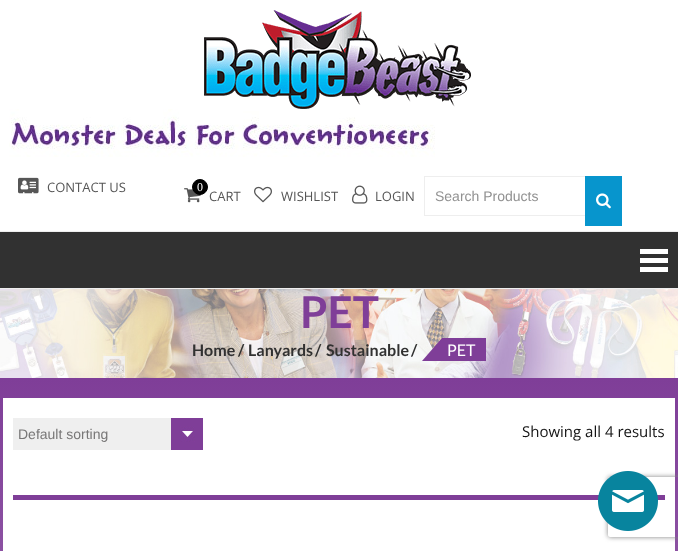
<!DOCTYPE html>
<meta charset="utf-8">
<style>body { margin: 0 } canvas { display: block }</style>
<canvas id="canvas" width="678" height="551"></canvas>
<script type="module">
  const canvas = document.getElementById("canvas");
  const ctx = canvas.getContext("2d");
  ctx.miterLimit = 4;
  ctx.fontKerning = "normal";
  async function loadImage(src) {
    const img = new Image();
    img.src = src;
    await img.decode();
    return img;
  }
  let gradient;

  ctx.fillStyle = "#ffffff";
  ctx.fillRect(0, 0, 678, 551);
  ctx.drawImage(await loadImage("img1.png"), 204, 10, 267, 99);
  ctx.drawImage(await loadImage("img2.png"), 9, 109, 426, 48);
  ctx.drawImage(await loadImage("img3.png"), 18, 177, 21, 17);
  ctx.font = "13px Open Sans";
  ctx.fillStyle = "#565656";
  ctx.fillText("CONTACT US", 47, 192);
  ctx.drawImage(await loadImage("img4.png"), 184, 188, 17, 15);
  ctx.fillStyle = "#000000";
  ctx.beginPath();
  ctx.arc(200, 187, 7.5, 0, Math.PI * 2);
  ctx.fill();
  ctx.strokeStyle = "#000000";
  ctx.stroke();
  ctx.font = "12px Liberation Serif";
  ctx.fillStyle = "#ffffff";
  ctx.fillText("0", 197, 191);
  ctx.font = "13px Open Sans";
  ctx.fillStyle = "#565656";
  ctx.fillText("CART", 209, 201);
  ctx.drawImage(await loadImage("img5.png"), 254, 186, 18, 17);
  ctx.fillText("WISHLIST", 281, 201);
  ctx.drawImage(await loadImage("img6.png"), 352, 185, 16, 19);
  ctx.fillText("LOGIN", 375, 201);
  ctx.strokeStyle = "#eeeeee";
  ctx.strokeRect(424.5, 176.5, 197, 39);
  ctx.font = "14px Liberation Sans";
  ctx.fillStyle = "#919191";
  ctx.fillText("Search Products", 435, 201);
  ctx.fillStyle = "#0795cd";
  ctx.fillRect(585, 176, 37, 50);
  ctx.drawImage(await loadImage("img7.png"), 596, 193, 15, 16);
  ctx.fillStyle = "#eeeeee";
  ctx.fillRect(0, 231, 678, 1);
  ctx.fillRect(0, 288, 678, 1);
  ctx.fillStyle = "#313131";
  ctx.fillRect(0, 232, 678, 56);
  ctx.fillStyle = "#ffffff";
  ctx.fillRect(640, 249, 28, 5);
  ctx.fillRect(640, 258, 28, 5);
  ctx.fillRect(640, 267, 28, 5);
  ctx.drawImage(await loadImage("img8.png"), 0, 289, 678, 89);
  ctx.font = "bold 44px Lato";
  ctx.fillStyle = "#7f3e98";
  ctx.fillText("PET", 300, 328);
  ctx.font = "bold 16px Lato";
  ctx.fillStyle = "#313131";
  ctx.fillText("Home", 192, 356);
  ctx.fillText("/", 238, 356);
  ctx.fillText("Lanyards", 248, 356);
  ctx.fillText("/", 315, 356);
  ctx.fillText("Sustainable", 326, 356);
  ctx.fillText("/", 411, 356);
  ctx.fillStyle = "#7f3e98";
  ctx.fillRect(442, 338, 44, 23);
  ctx.beginPath();
  ctx.moveTo(442, 338);
  ctx.lineTo(442, 361);
  ctx.lineTo(422, 361);
  ctx.closePath();
  ctx.fill();
  ctx.font = "16px Lato";
  ctx.fillStyle = "#ffffff";
  ctx.fillText("PET", 447, 356);
  gradient = ctx.createLinearGradient(339, 378, 339, 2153);
  gradient.addColorStop(0, "#7f3e98");
  gradient.addColorStop(1, "#ffffff");
  ctx.fillStyle = gradient;
  ctx.fillRect(0, 378, 678, 173);
  ctx.fillStyle = "#ffffff";
  ctx.fillRect(3, 398, 672, 153);
  ctx.fillStyle = "#efefef";
  ctx.fillRect(13, 418, 158, 32);
  ctx.drawImage(await loadImage("img9.png"), 171, 418, 32, 32);
  ctx.font = "14px Liberation Sans";
  ctx.fillStyle = "#787777";
  ctx.fillText("Default sorting", 18, 439);
  ctx.font = "15px Open Sans";
  ctx.fillStyle = "#141414";
  ctx.fillText("Showing all 4 results", 522, 437);
  ctx.fillStyle = "#7f3e98";
  ctx.fillRect(13, 495, 652, 5);
  ctx.save();
  ctx.beginPath();
  ctx.moveTo(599, 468);
  ctx.lineTo(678, 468);
  ctx.lineTo(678, 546);
  ctx.lineTo(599, 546);
  ctx.closePath();
  ctx.moveTo(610, 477);
  ctx.lineTo(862, 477);
  ctx.bezierCurveTo(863, 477, 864, 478, 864, 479);
  ctx.lineTo(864, 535);
  ctx.bezierCurveTo(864, 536, 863, 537, 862, 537);
  ctx.lineTo(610, 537);
  ctx.bezierCurveTo(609, 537, 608, 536, 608, 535);
  ctx.lineTo(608, 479);
  ctx.bezierCurveTo(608, 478, 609, 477, 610, 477);
  ctx.closePath();
  ctx.clip("evenodd");
  ctx.fillStyle = "#808080";
  ctx.filter = "blur(2.5px)";
  ctx.beginPath();
  ctx.roundRect(608, 477, 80, 60, 2);
  ctx.fill();
  ctx.filter = "none";
  ctx.restore();
  ctx.drawImage(await loadImage("img10.png"), 598, 471, 60, 60);
</script>
